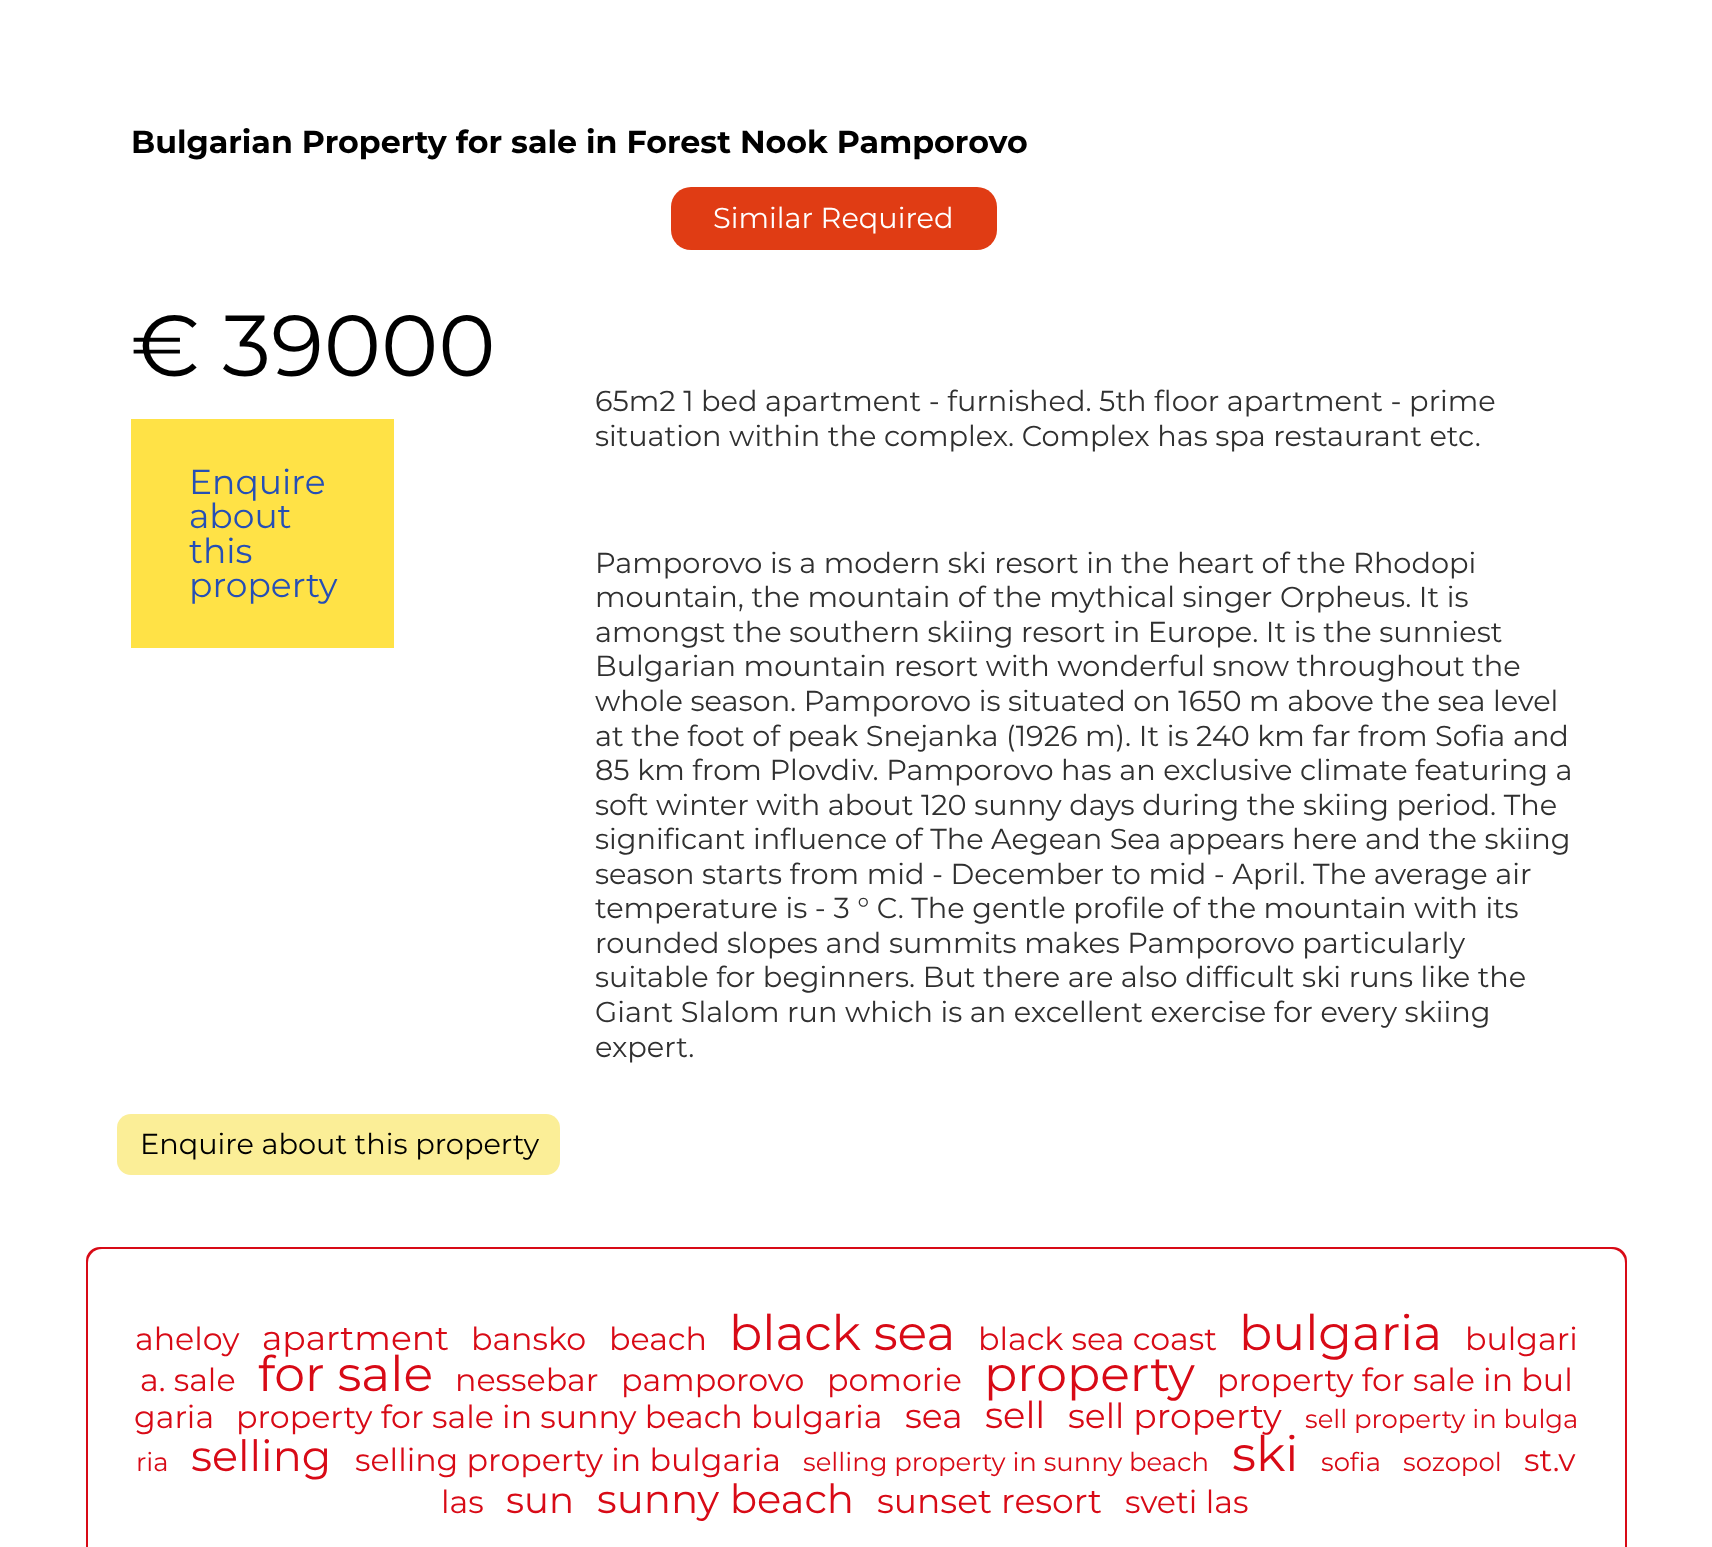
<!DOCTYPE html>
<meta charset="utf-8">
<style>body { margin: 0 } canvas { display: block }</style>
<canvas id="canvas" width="1712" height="1547"></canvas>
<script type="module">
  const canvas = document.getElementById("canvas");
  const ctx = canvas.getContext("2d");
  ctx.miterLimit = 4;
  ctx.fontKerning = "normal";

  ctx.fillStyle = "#ffffff";
  ctx.fillRect(0, 0, 1712, 1547);
  ctx.font = "bold 31.7px Montserrat";
  ctx.fillStyle = "#000000";
  ctx.fillText("Bulgarian Property for sale in Forest Nook Pamporovo", 131, 153);
  ctx.fillStyle = "#e03c14";
  ctx.beginPath();
  ctx.roundRect(671, 187, 326, 63, 20);
  ctx.fill();
  ctx.font = "28.8px Montserrat";
  ctx.fillStyle = "#ffffff";
  ctx.fillText("Similar Required", 713, 228);
  ctx.font = "86.5px Montserrat";
  ctx.fillStyle = "#000000";
  ctx.fillText("€ 39000", 131, 376);
  ctx.fillStyle = "#ffe246";
  ctx.fillRect(131, 419, 263, 229);
  ctx.font = "34.5px Montserrat";
  ctx.fillStyle = "#254fb6";
  ctx.fillText("Enquire", 189, 494);
  ctx.fillText("about", 189, 528);
  ctx.fillText("this", 189, 563);
  ctx.fillText("property", 189, 597);
  ctx.font = "28.8px Montserrat";
  ctx.fillStyle = "#303030";
  ctx.fillText("65m2 1 bed apartment - furnished. 5th floor apartment - prime", 595, 411);
  ctx.fillText("situation within the complex. Complex has spa restaurant etc.", 595, 446);
  ctx.fillText("Pamporovo is a modern ski resort in the heart of the Rhodopi", 595, 573);
  ctx.fillText("mountain, the mountain of the mythical singer Orpheus. It is", 595, 607);
  ctx.fillText("amongst the southern skiing resort in Europe. It is the sunniest", 595, 642);
  ctx.fillText("Bulgarian mountain resort with wonderful snow throughout the", 595, 676);
  ctx.fillText("whole season. Pamporovo is situated on 1650 m above the sea level", 595, 711);
  ctx.fillText("at the foot of peak Snejanka (1926 m). It is 240 km far from Sofia and", 595, 746);
  ctx.fillText("85 km from Plovdiv. Pamporovo has an exclusive climate featuring a", 595, 780);
  ctx.fillText("soft winter with about 120 sunny days during the skiing period. The", 595, 815);
  ctx.fillText("significant influence of The Aegean Sea appears here and the skiing", 595, 849);
  ctx.fillText("season starts from mid - December to mid - April. The average air", 595, 884);
  ctx.fillText("temperature is - 3 ° C. The gentle profile of the mountain with its", 595, 918);
  ctx.fillText("rounded slopes and summits makes Pamporovo particularly", 595, 953);
  ctx.fillText("suitable for beginners. But there are also difficult ski runs like the", 595, 987);
  ctx.fillText("Giant Slalom run which is an excellent exercise for every skiing", 595, 1022);
  ctx.fillText("expert.", 595, 1057);
  ctx.fillStyle = "#fbee97";
  ctx.beginPath();
  ctx.roundRect(117, 1114, 443, 61, 14);
  ctx.fill();
  ctx.fillStyle = "#000000";
  ctx.fillText("Enquire about this property", 140, 1154);
  ctx.fillStyle = "#d80a16";
  ctx.beginPath();
  ctx.roundRect(87, 1248, 1539, 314, 13);
  ctx.fill();
  ctx.strokeStyle = "#d80a16";
  ctx.lineWidth = 2;
  ctx.stroke();
  ctx.fillStyle = "#ffffff";
  ctx.beginPath();
  ctx.roundRect(88, 1249, 1537, 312, 14);
  ctx.fill();
  ctx.font = "31.7px Montserrat";
  ctx.fillStyle = "#d80a16";
  ctx.fillText("aheloy", 135, 1350);
  ctx.font = "34.5px Montserrat";
  ctx.fillText("apartment", 262, 1350);
  ctx.font = "31.7px Montserrat";
  ctx.fillText("bansko", 471, 1350);
  ctx.fillText("beach", 609, 1350);
  ctx.font = "49px Montserrat";
  ctx.fillText("black sea", 729, 1350);
  ctx.font = "31.7px Montserrat";
  ctx.fillText("black sea coast", 978, 1350);
  ctx.font = "49px Montserrat";
  ctx.fillText("bulgaria", 1239, 1350);
  ctx.font = "31.7px Montserrat";
  ctx.fillText("bulgari", 1465, 1350);
  ctx.fillText("a. sale", 140, 1391);
  ctx.font = "49px Montserrat";
  ctx.fillText("for sale", 258, 1391);
  ctx.font = "31.7px Montserrat";
  ctx.fillText("nessebar", 455, 1391);
  ctx.fillText("pamporovo", 621, 1391);
  ctx.fillText("pomorie", 827, 1391);
  ctx.font = "49px Montserrat";
  ctx.fillText("property", 984, 1391);
  ctx.font = "31.7px Montserrat";
  ctx.fillText("property for sale in bul", 1217, 1391);
  ctx.fillText("garia", 134, 1428);
  ctx.fillText("property for sale in sunny beach bulgaria", 236, 1428);
  ctx.font = "34.5px Montserrat";
  ctx.fillText("sea", 905, 1428);
  ctx.font = "37px Montserrat";
  ctx.fillText("sell", 985, 1428);
  ctx.font = "34.5px Montserrat";
  ctx.fillText("sell property", 1068, 1428);
  ctx.font = "25.9px Montserrat";
  ctx.fillText("sell property in bulga", 1305, 1428);
  ctx.fillText("ria", 136, 1471);
  ctx.font = "43px Montserrat";
  ctx.fillText("selling", 191, 1471);
  ctx.font = "31.7px Montserrat";
  ctx.fillText("selling property in bulgaria", 355, 1471);
  ctx.font = "25.9px Montserrat";
  ctx.fillText("selling property in sunny beach", 803, 1471);
  ctx.font = "49px Montserrat";
  ctx.fillText("ski", 1232, 1471);
  ctx.font = "25.9px Montserrat";
  ctx.fillText("sofia", 1321, 1471);
  ctx.fillText("sozopol", 1403, 1471);
  ctx.font = "31.7px Montserrat";
  ctx.fillText("st.v", 1524, 1471);
  ctx.fillText("las", 441, 1513);
  ctx.font = "37px Montserrat";
  ctx.fillText("sun", 506, 1513);
  ctx.font = "40.25px Montserrat";
  ctx.fillText("sunny beach", 597, 1513);
  ctx.font = "34.5px Montserrat";
  ctx.fillText("sunset resort", 877, 1513);
  ctx.font = "31.7px Montserrat";
  ctx.fillText("sveti las", 1125, 1513);
</script>
